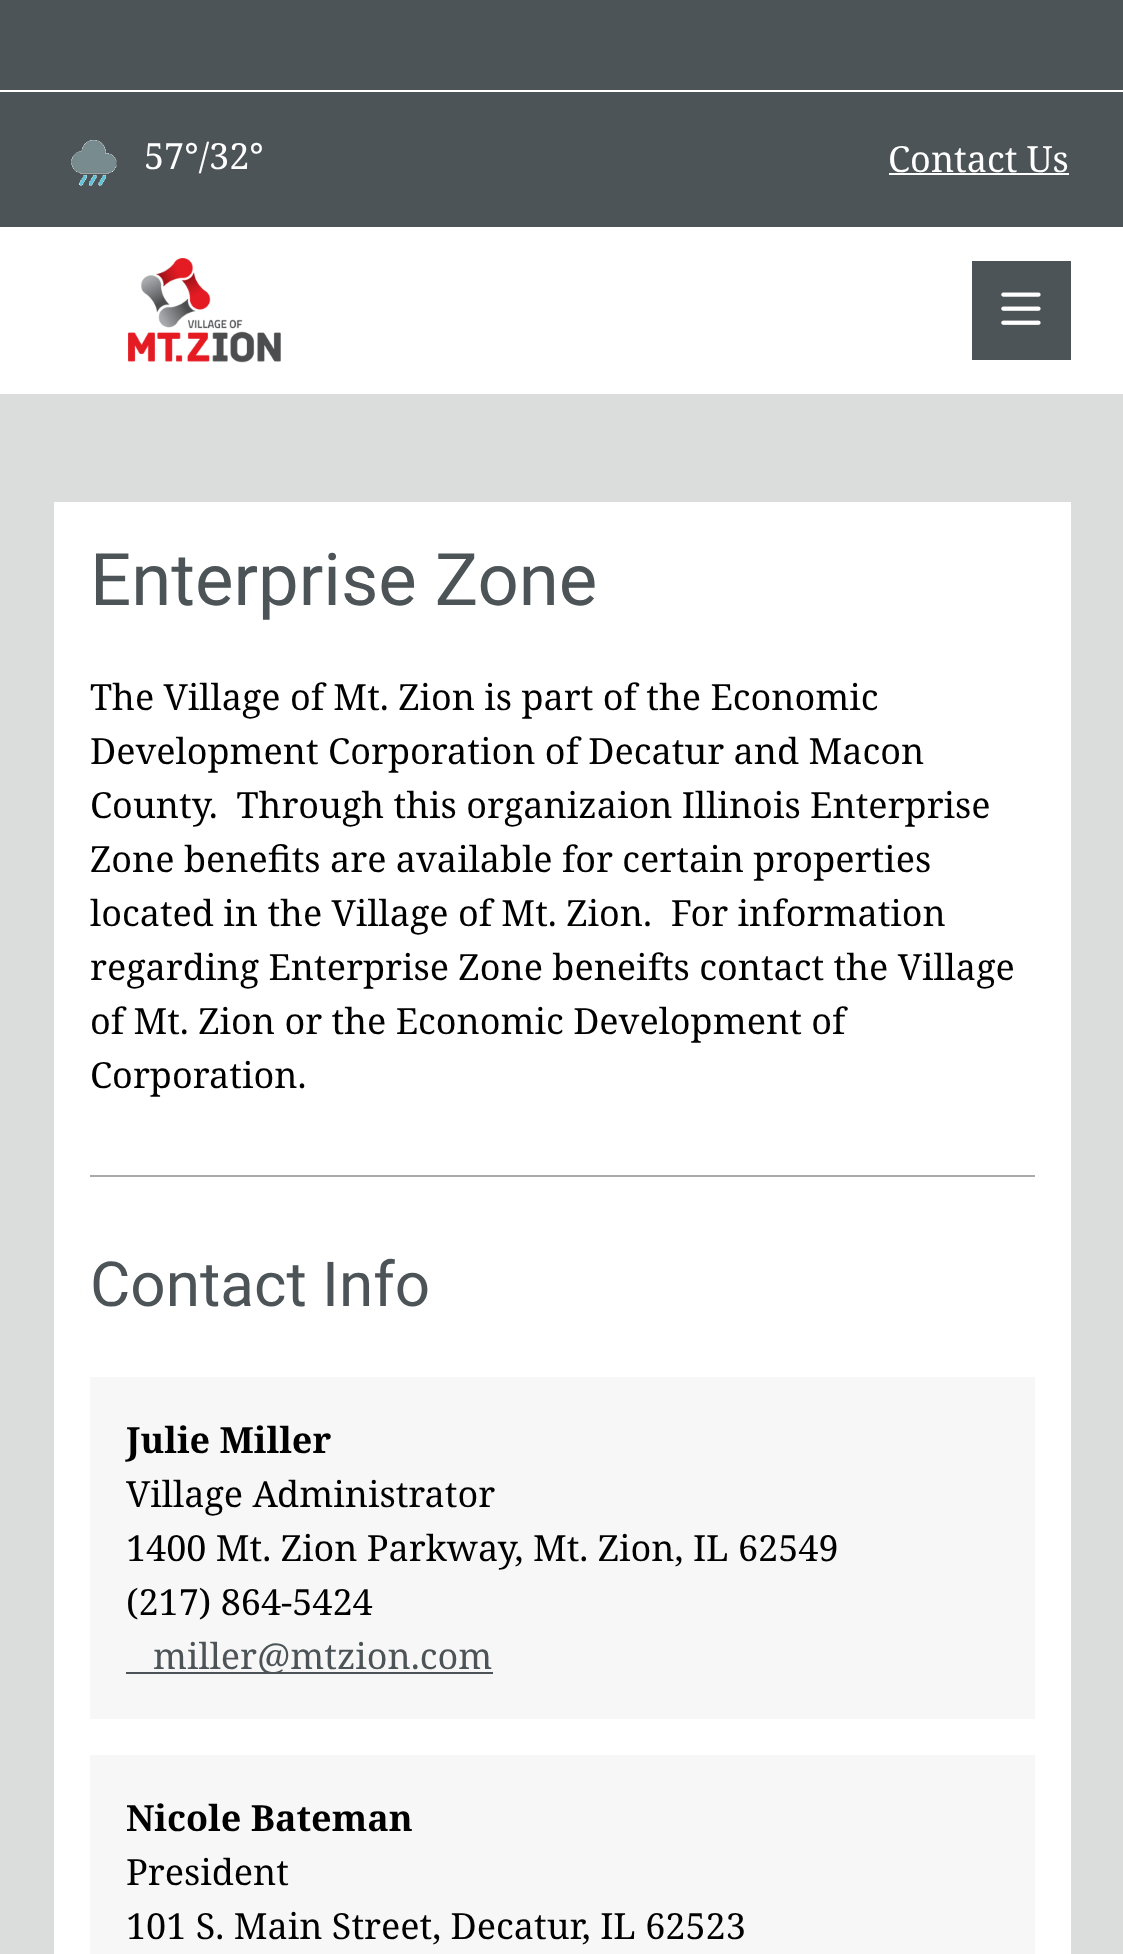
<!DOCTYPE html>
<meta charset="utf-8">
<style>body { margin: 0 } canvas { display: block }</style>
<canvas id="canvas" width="1123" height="1954"></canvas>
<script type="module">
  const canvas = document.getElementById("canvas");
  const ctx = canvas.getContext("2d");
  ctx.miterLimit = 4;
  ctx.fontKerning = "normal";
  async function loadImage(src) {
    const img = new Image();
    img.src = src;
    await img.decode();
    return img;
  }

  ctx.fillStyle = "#dbdddd";
  ctx.fillRect(0, 0, 1123, 1954);
  ctx.fillStyle = "#4d5457";
  ctx.fillRect(0, 0, 1123, 227);
  ctx.fillStyle = "#ffffff";
  ctx.fillRect(0, 90, 1123, 2);
  ctx.drawImage(await loadImage("img1.png"), 71, 140, 46, 46);
  ctx.font = "36px Noto Serif";
  ctx.fillText("57°/32°", 144, 169);
  ctx.fillText("Contact Us", 888, 172);
  ctx.fillRect(889, 173, 180, 2);
  ctx.fillRect(0, 227, 1123, 167);
  ctx.drawImage(await loadImage("img2.png"), 128, 258, 153, 105);
  ctx.fillStyle = "#4d5457";
  ctx.fillRect(972, 261, 99, 99);
  ctx.drawImage(await loadImage("img3.png"), 1001, 292, 40, 33);
  ctx.fillStyle = "#ffffff";
  ctx.fillRect(54, 502, 1017, 1452);
  ctx.font = "72.5px Roboto";
  ctx.fillStyle = "#4d5457";
  ctx.fillText("Enterprise Zone", 90, 605);
  ctx.font = "36px Noto Serif";
  ctx.fillStyle = "#000000";
  ctx.fillText("The Village of Mt. Zion is part of the Economic", 90, 710);
  ctx.fillText("Development Corporation of Decatur and Macon", 90, 764);
  ctx.fillText("County.  Through this organizaion Illinois Enterprise", 90, 818);
  ctx.fillText("Zone benefits are available for certain properties", 90, 872);
  ctx.fillText("located in the Village of Mt. Zion.  For information", 90, 926);
  ctx.fillText("regarding Enterprise Zone beneifts contact the Village", 90, 980);
  ctx.fillText("of Mt. Zion or the Economic Development of", 90, 1034);
  ctx.fillText("Corporation.", 90, 1088);
  ctx.fillStyle = "#aaaaaa";
  ctx.fillRect(90, 1175, 945, 2);
  ctx.font = "62px Roboto";
  ctx.fillStyle = "#4d5457";
  ctx.fillText("Contact Info", 90, 1306);
  ctx.fillStyle = "#f7f7f7";
  ctx.fillRect(90, 1377, 945, 342);
  ctx.font = "bold 36px Noto Serif";
  ctx.fillStyle = "#000000";
  ctx.fillText("Julie Miller", 126, 1453);
  ctx.font = "36px Noto Serif";
  ctx.fillText("Village Administrator", 126, 1507);
  ctx.fillText("1400 Mt. Zion Parkway, Mt. Zion, IL 62549", 126, 1561);
  ctx.fillText("(217) 864-5424", 126, 1615);
  ctx.fillStyle = "#4d5457";
  ctx.fillRect(126, 1672, 367, 2);
  ctx.fillText("miller@mtzion.com", 153, 1669);
  ctx.fillStyle = "#f7f7f7";
  ctx.fillRect(90, 1755, 945, 199);
  ctx.font = "bold 36px Noto Serif";
  ctx.fillStyle = "#000000";
  ctx.fillText("Nicole Bateman", 126, 1831);
  ctx.font = "36px Noto Serif";
  ctx.fillText("President", 126, 1885);
  ctx.fillText("101 S. Main Street, Decatur, IL 62523", 126, 1939);
</script>
